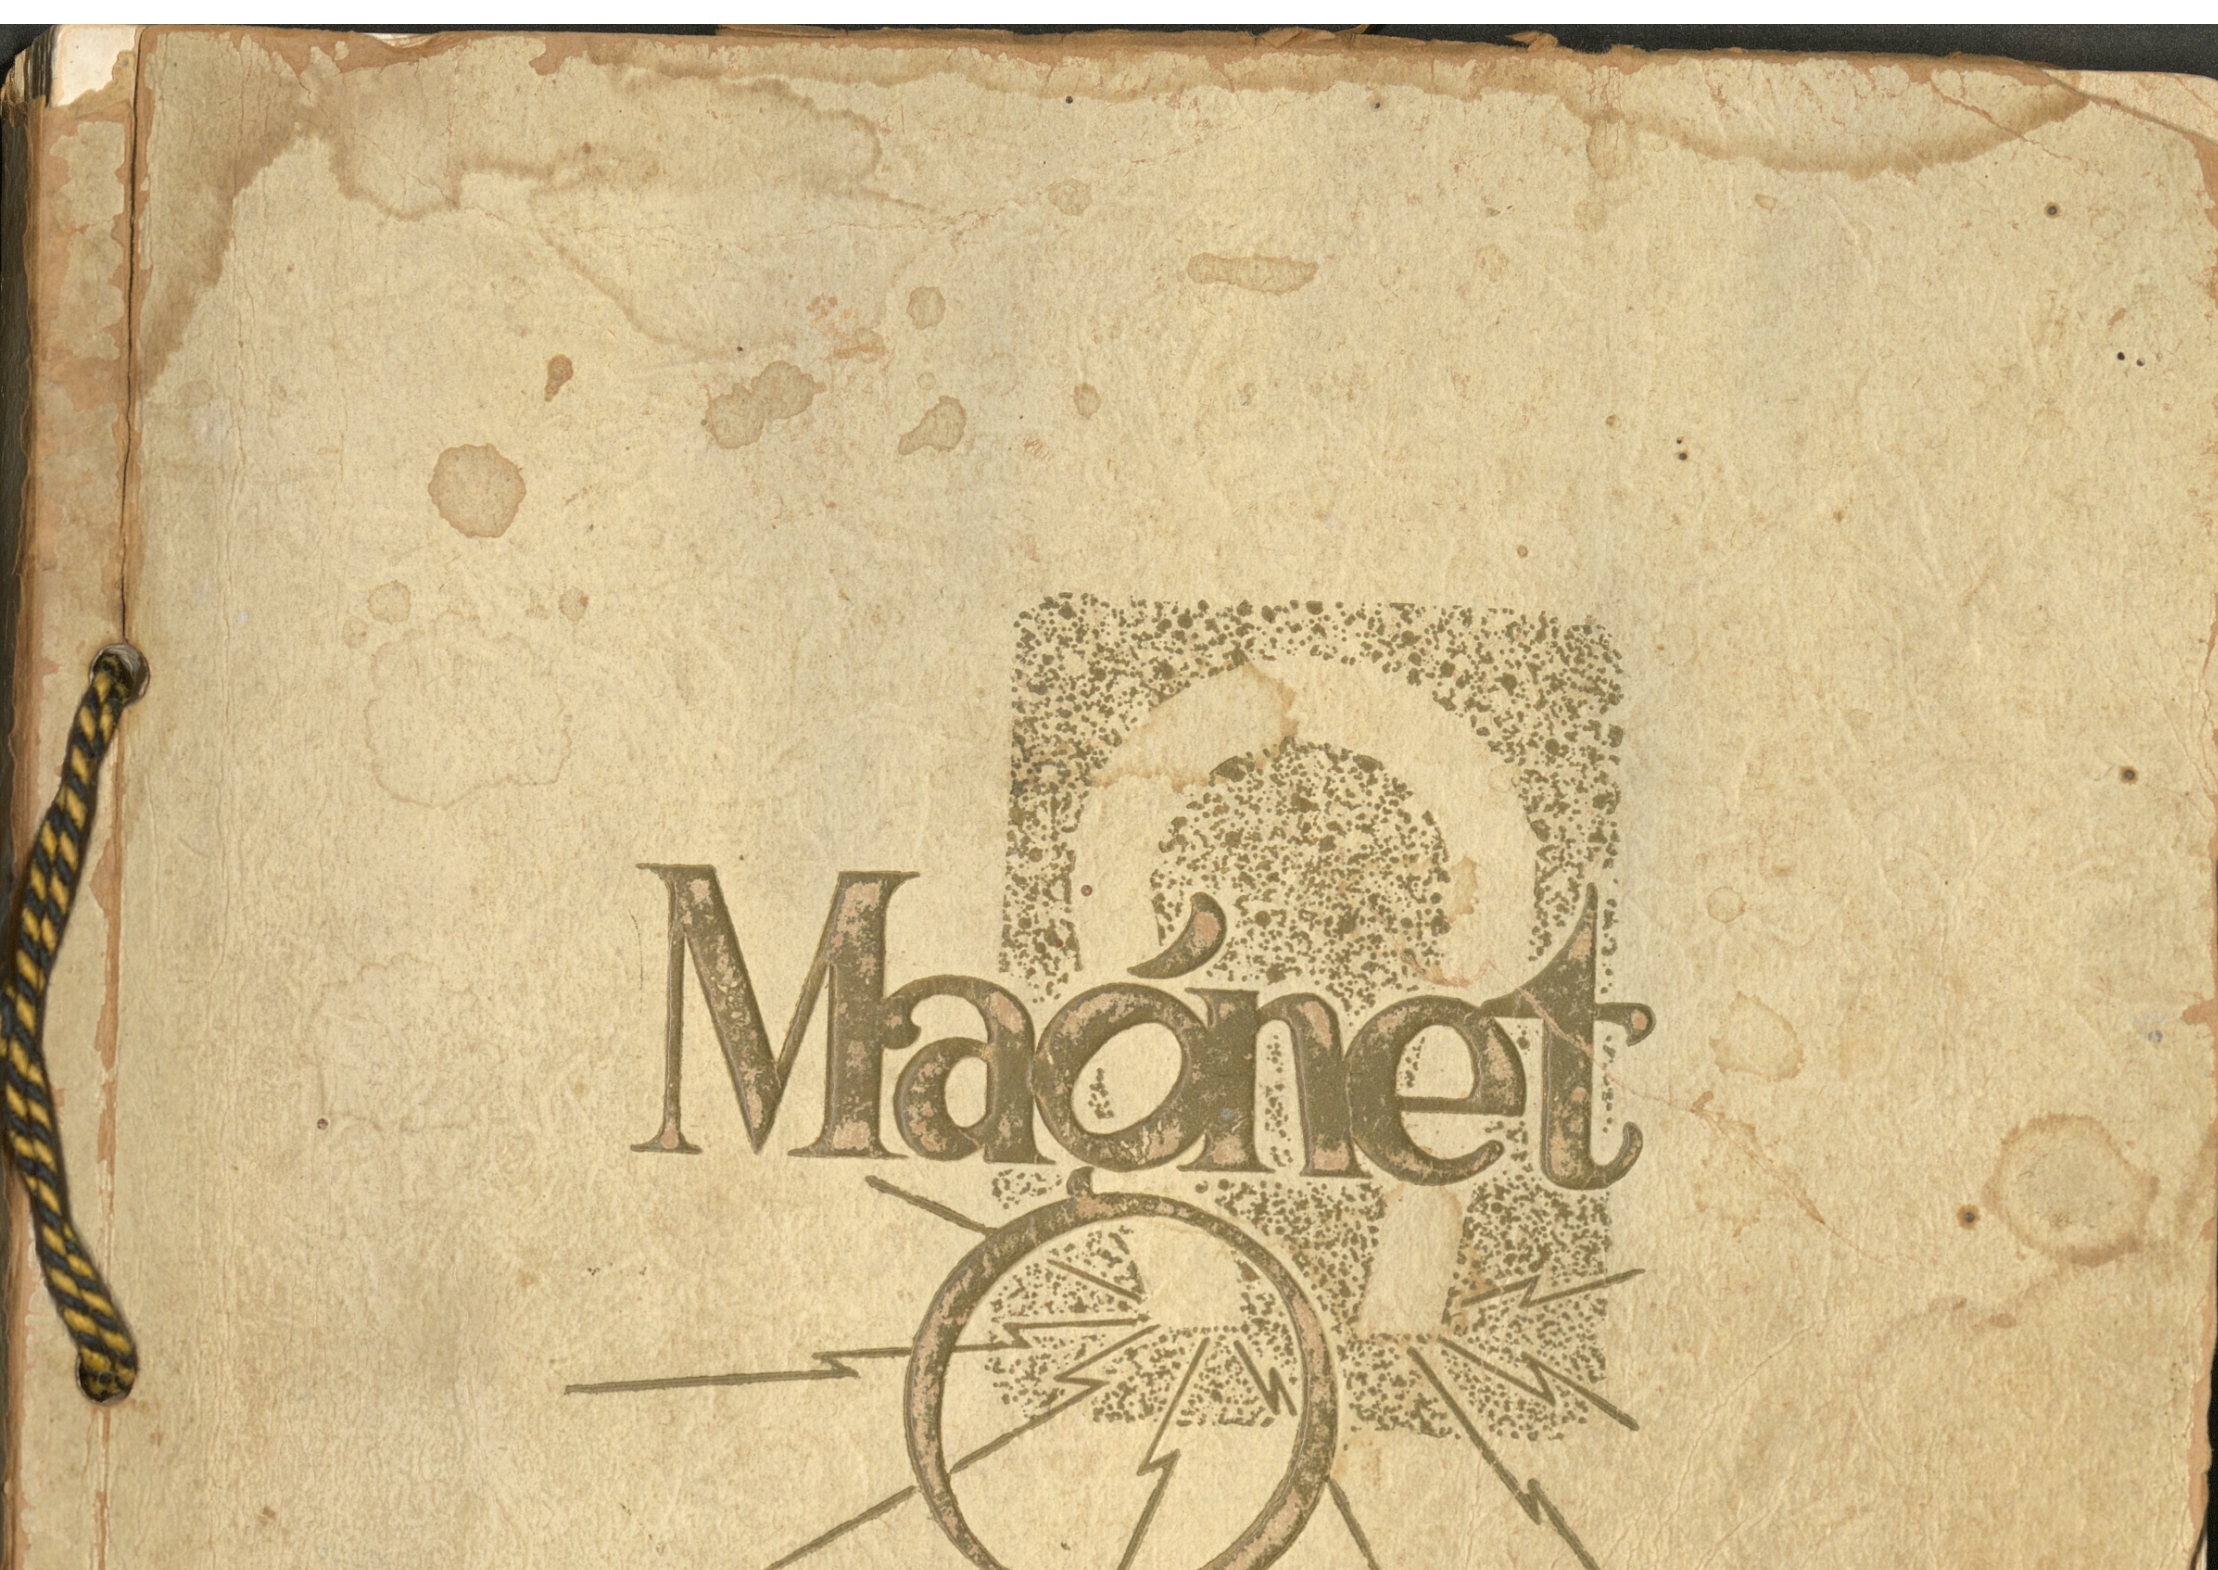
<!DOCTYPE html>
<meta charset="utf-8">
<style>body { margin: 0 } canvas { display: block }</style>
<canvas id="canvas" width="2218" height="1570"></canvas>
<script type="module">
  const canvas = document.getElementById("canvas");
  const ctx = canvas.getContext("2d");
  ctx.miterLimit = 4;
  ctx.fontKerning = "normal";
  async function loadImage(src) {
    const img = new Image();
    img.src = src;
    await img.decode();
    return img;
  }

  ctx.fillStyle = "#ffffff";
  ctx.fillRect(0, 0, 2218, 1570);
  ctx.drawImage(await loadImage("img1.png"), 0, 24, 2218, 1546);
</script>
